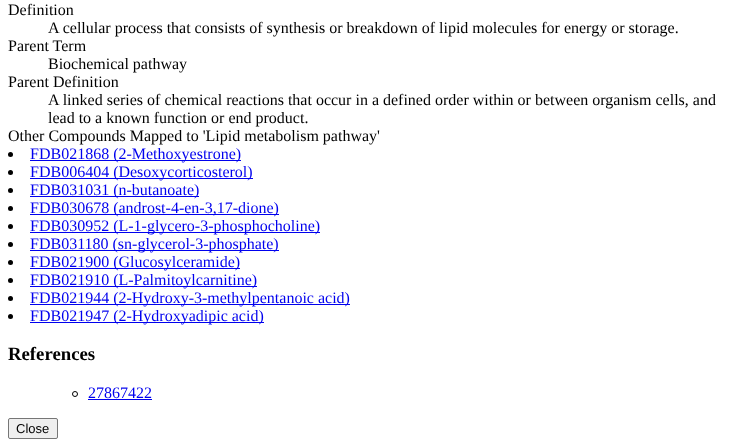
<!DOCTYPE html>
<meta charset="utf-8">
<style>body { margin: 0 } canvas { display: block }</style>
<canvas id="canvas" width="742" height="447"></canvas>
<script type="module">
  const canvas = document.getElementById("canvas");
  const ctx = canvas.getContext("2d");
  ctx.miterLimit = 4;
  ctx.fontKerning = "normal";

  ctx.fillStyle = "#ffffff";
  ctx.fillRect(0, 0, 742, 447);
  ctx.font = "16px Liberation Serif";
  ctx.fillStyle = "#000000";
  ctx.fillText("Definition", 8, 15);
  ctx.fillText("A cellular process that consists of synthesis or breakdown of lipid molecules for energy or storage.", 48, 33);
  ctx.fillText("Parent Term", 8, 51);
  ctx.fillText("Biochemical pathway", 48, 69);
  ctx.fillText("Parent Definition", 8, 87);
  ctx.fillText("A linked series of chemical reactions that occur in a defined order within or between organism cells, and", 48, 105);
  ctx.fillText("lead to a known function or end product.", 48, 123);
  ctx.fillText("Other Compounds Mapped to 'Lipid metabolism pathway'", 8, 141);
  ctx.beginPath();
  ctx.arc(10.5, 154.5, 2.5, 0, Math.PI * 2);
  ctx.fill();
  ctx.fillStyle = "#0000ee";
  ctx.fillRect(30, 160, 211, 1);
  ctx.fillText("FDB021868 (2-Methoxyestrone)", 30, 159);
  ctx.fillStyle = "#000000";
  ctx.beginPath();
  ctx.arc(10.5, 172.5, 2.5, 0, Math.PI * 2);
  ctx.fill();
  ctx.fillStyle = "#0000ee";
  ctx.fillRect(30, 178, 223, 1);
  ctx.fillText("FDB006404 (Desoxycorticosterol)", 30, 177);
  ctx.fillStyle = "#000000";
  ctx.beginPath();
  ctx.arc(10.5, 190.5, 2.5, 0, Math.PI * 2);
  ctx.fill();
  ctx.fillStyle = "#0000ee";
  ctx.fillRect(30, 196, 169, 1);
  ctx.fillText("FDB031031 (n-butanoate)", 30, 195);
  ctx.fillStyle = "#000000";
  ctx.beginPath();
  ctx.arc(10.5, 208.5, 2.5, 0, Math.PI * 2);
  ctx.fill();
  ctx.fillStyle = "#0000ee";
  ctx.fillRect(30, 214, 249, 1);
  ctx.fillText("FDB030678 (androst-4-en-3,17-dione)", 30, 213);
  ctx.fillStyle = "#000000";
  ctx.beginPath();
  ctx.arc(10.5, 226.5, 2.5, 0, Math.PI * 2);
  ctx.fill();
  ctx.fillStyle = "#0000ee";
  ctx.fillRect(30, 232, 290, 1);
  ctx.fillText("FDB030952 (L-1-glycero-3-phosphocholine)", 30, 231);
  ctx.fillStyle = "#000000";
  ctx.beginPath();
  ctx.arc(10.5, 244.5, 2.5, 0, Math.PI * 2);
  ctx.fill();
  ctx.fillStyle = "#0000ee";
  ctx.fillRect(30, 250, 249, 1);
  ctx.fillText("FDB031180 (sn-glycerol-3-phosphate)", 30, 249);
  ctx.fillStyle = "#000000";
  ctx.beginPath();
  ctx.arc(10.5, 262.5, 2.5, 0, Math.PI * 2);
  ctx.fill();
  ctx.fillStyle = "#0000ee";
  ctx.fillRect(30, 268, 210, 1);
  ctx.fillText("FDB021900 (Glucosylceramide)", 30, 267);
  ctx.fillStyle = "#000000";
  ctx.beginPath();
  ctx.arc(10.5, 280.5, 2.5, 0, Math.PI * 2);
  ctx.fill();
  ctx.fillStyle = "#0000ee";
  ctx.fillRect(30, 286, 227, 1);
  ctx.fillText("FDB021910 (L-Palmitoylcarnitine)", 30, 285);
  ctx.fillStyle = "#000000";
  ctx.beginPath();
  ctx.arc(10.5, 298.5, 2.5, 0, Math.PI * 2);
  ctx.fill();
  ctx.fillStyle = "#0000ee";
  ctx.fillRect(30, 304, 320, 1);
  ctx.fillText("FDB021944 (2-Hydroxy-3-methylpentanoic acid)", 30, 303);
  ctx.fillStyle = "#000000";
  ctx.beginPath();
  ctx.arc(10.5, 316.5, 2.5, 0, Math.PI * 2);
  ctx.fill();
  ctx.fillStyle = "#0000ee";
  ctx.fillRect(30, 322, 234, 1);
  ctx.fillText("FDB021947 (2-Hydroxyadipic acid)", 30, 321);
  ctx.font = "bold 18.75px Liberation Serif";
  ctx.fillStyle = "#000000";
  ctx.fillText("References", 8, 360);
  ctx.beginPath();
  ctx.arc(75, 394, 2.5, 0, Math.PI * 2);
  ctx.strokeStyle = "#000000";
  ctx.stroke();
  ctx.font = "16px Liberation Serif";
  ctx.fillStyle = "#0000ee";
  ctx.fillText("27867422", 88, 398);
  ctx.fillRect(88, 399, 64, 1);
  ctx.fillStyle = "#efefef";
  ctx.beginPath();
  ctx.roundRect(8.5, 418.5, 49, 20, 1.5);
  ctx.fill();
  ctx.strokeStyle = "#767676";
  ctx.stroke();
  ctx.font = "13px Liberation Sans";
  ctx.fillStyle = "#000000";
  ctx.fillText("Close", 16, 433);
</script>
